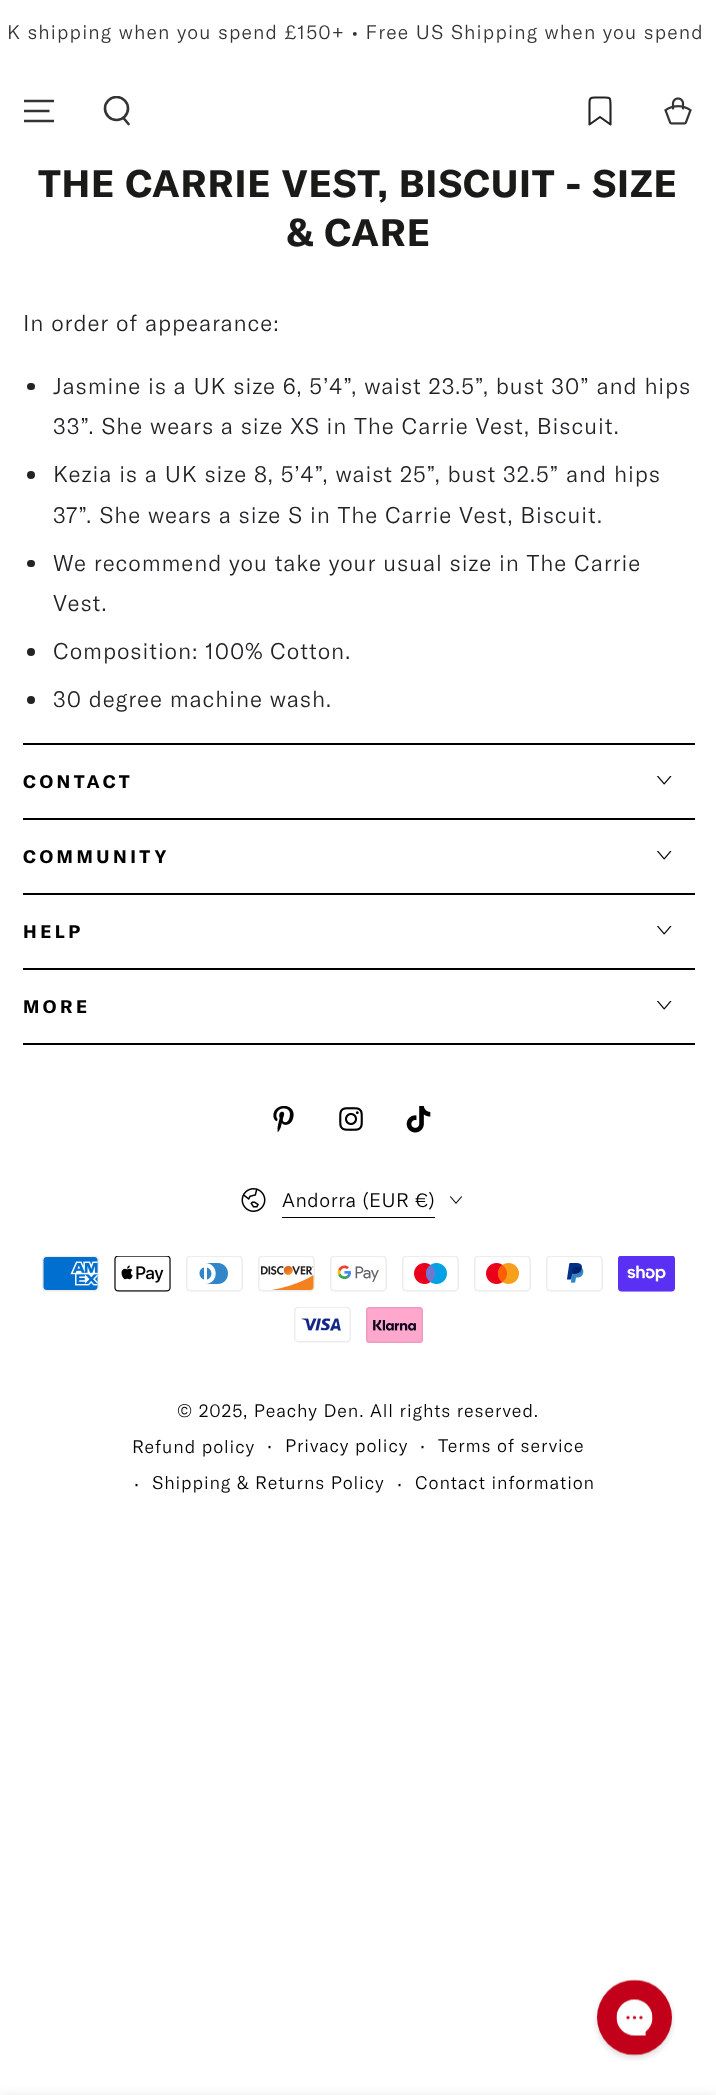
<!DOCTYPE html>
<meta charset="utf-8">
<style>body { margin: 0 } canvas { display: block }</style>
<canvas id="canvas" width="716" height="2095"></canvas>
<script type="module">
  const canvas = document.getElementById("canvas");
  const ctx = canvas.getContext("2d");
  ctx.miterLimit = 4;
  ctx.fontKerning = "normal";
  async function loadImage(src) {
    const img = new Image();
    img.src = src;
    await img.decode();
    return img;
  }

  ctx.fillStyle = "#ffffff";
  ctx.fillRect(0, 0, 716, 2095);
  ctx.letterSpacing = "1.17px";
  ctx.font = "300 19.5px GT America";
  ctx.fillStyle = "#343434";
  ctx.fillText("K shipping when you spend £150+ • Free US Shipping when you spend", 7, 39);
  ctx.beginPath();
  ctx.moveTo(24, 121);
  ctx.lineTo(54, 121);
  ctx.moveTo(24, 111);
  ctx.lineTo(49.5, 111);
  ctx.moveTo(24, 101);
  ctx.lineTo(54, 101);
  ctx.strokeStyle = "#343434";
  ctx.lineWidth = 2.4;
  ctx.stroke();
  ctx.save();
  ctx.beginPath();
  ctx.rect(102, 96, 30, 30);
  ctx.clip();
  ctx.beginPath();
  ctx.arc(116.5, 108.5, 11.5, 0, Math.PI * 2);
  ctx.lineWidth = 2.6;
  ctx.stroke();
  ctx.restore();
  ctx.beginPath();
  ctx.moveTo(123.5, 118);
  ctx.lineTo(128.5, 124);
  ctx.lineWidth = 2.6;
  ctx.lineCap = "round";
  ctx.stroke();
  ctx.beginPath();
  ctx.moveTo(589.5, 102.5);
  ctx.bezierCurveTo(589.5, 98.5, 590.5, 97.5, 594.5, 97.5);
  ctx.lineTo(600, 97.5);
  ctx.bezierCurveTo(610.5, 97.5, 610.5, 96, 610.5, 106);
  ctx.lineTo(610.5, 124.5);
  ctx.lineTo(600, 117);
  ctx.lineTo(589.5, 124.5);
  ctx.closePath();
  ctx.strokeStyle = "#212326";
  ctx.lineWidth = 2.1;
  ctx.lineCap = "butt";
  ctx.lineJoin = "round";
  ctx.stroke();
  ctx.drawImage(await loadImage("img1.png"), 664, 97, 28, 28);
  ctx.letterSpacing = "0.8px";
  ctx.font = "bold 37.75px GT America";
  ctx.fillStyle = "#1a1b18";
  ctx.fillText("THE CARRIE VEST, BISCUIT - SIZE", 38, 197);
  ctx.fillText("& CARE", 287, 246);
  ctx.letterSpacing = "0.9px";
  ctx.font = "300 22.5px GT America";
  ctx.fillStyle = "#212326";
  ctx.fillText("In order of appearance:", 23, 331);
  ctx.beginPath();
  ctx.roundRect(27, 383, 8, 7, 3.5);
  ctx.fill();
  ctx.fillText("Jasmine is a UK size 6, 5’4”, waist 23.5”, bust 30” and hips", 53, 394);
  ctx.fillText("33”. She wears a size XS in The Carrie Vest, Biscuit.", 53, 434);
  ctx.beginPath();
  ctx.arc(31, 475, 4, 0, Math.PI * 2);
  ctx.fill();
  ctx.fillText("Kezia is a UK size 8, 5’4”, waist 25”, bust 32.5” and hips", 53, 482);
  ctx.fillText("37”. She wears a size S in The Carrie Vest, Biscuit.", 53, 523);
  ctx.beginPath();
  ctx.roundRect(27, 560, 8, 7, 3.5);
  ctx.fill();
  ctx.fillText("We recommend you take your usual size in The Carrie", 53, 571);
  ctx.fillText("Vest.", 53, 611);
  ctx.beginPath();
  ctx.arc(31, 652, 4, 0, Math.PI * 2);
  ctx.fill();
  ctx.fillText("Composition: 100% Cotton.", 53, 659);
  ctx.beginPath();
  ctx.arc(31, 700, 4, 0, Math.PI * 2);
  ctx.fill();
  ctx.fillText("30 degree machine wash.", 53, 707);
  ctx.fillStyle = "#000000";
  ctx.fillRect(23, 743, 672, 2);
  ctx.fillRect(23, 818, 672, 2);
  ctx.letterSpacing = "3.5px";
  ctx.font = "bold 18px GT America";
  ctx.fillText("CONTACT", 23, 788);
  ctx.drawImage(await loadImage("img2.png"), 657, 776, 15, 9);
  ctx.fillRect(23, 893, 672, 2);
  ctx.fillText("COMMUNITY", 23, 863);
  ctx.drawImage(await loadImage("img2.png"), 657, 851, 15, 9);
  ctx.fillRect(23, 968, 672, 2);
  ctx.fillText("HELP", 23, 938);
  ctx.drawImage(await loadImage("img2.png"), 657, 926, 15, 9);
  ctx.fillRect(23, 1043, 672, 2);
  ctx.fillText("MORE", 23, 1013);
  ctx.drawImage(await loadImage("img2.png"), 657, 1001, 15, 9);
  ctx.drawImage(await loadImage("img3.png"), 273, 1106, 21, 27);
  ctx.drawImage(await loadImage("img4.png"), 339, 1107, 24, 24);
  ctx.drawImage(await loadImage("img5.png"), 406, 1106, 25, 27);
  ctx.drawImage(await loadImage("img6.png"), 241, 1188, 25, 24);
  ctx.fillRect(282, 1217, 153, 1);
  ctx.letterSpacing = "0.6px";
  ctx.font = "300 19.5px GT America";
  ctx.fillText("Andorra (EUR €)", 282, 1207);
  ctx.drawImage(await loadImage("img7.png"), 450, 1196, 12, 8);
  ctx.drawImage(await loadImage("img8.png"), 42, 1256, 57, 36);
  ctx.drawImage(await loadImage("img9.png"), 114, 1256, 57, 36);
  ctx.drawImage(await loadImage("img10.png"), 186, 1256, 57, 36);
  ctx.drawImage(await loadImage("img11.png"), 258, 1256, 57, 36);
  ctx.drawImage(await loadImage("img12.png"), 330, 1256, 57, 36);
  ctx.drawImage(await loadImage("img13.png"), 402, 1256, 57, 36);
  ctx.drawImage(await loadImage("img14.png"), 474, 1256, 57, 36);
  ctx.drawImage(await loadImage("img15.png"), 546, 1256, 57, 36);
  ctx.drawImage(await loadImage("img16.png"), 618, 1256, 57, 36);
  ctx.drawImage(await loadImage("img17.png"), 294, 1307, 57, 36);
  ctx.drawImage(await loadImage("img18.png"), 366, 1307, 57, 36);
  ctx.letterSpacing = "0.9px";
  ctx.font = "300 18px GT America";
  ctx.fillText("© 2025, Peachy Den. All rights reserved.", 177, 1417);
  ctx.fillText("Refund policy", 132, 1453);
  ctx.font = "300 21px GT America";
  ctx.fillText("·", 267, 1453);
  ctx.font = "300 18px GT America";
  ctx.fillText("Privacy policy", 285, 1452);
  ctx.font = "300 21px GT America";
  ctx.fillText("·", 420, 1453);
  ctx.font = "300 18px GT America";
  ctx.fillText("Terms of service", 438, 1452);
  ctx.font = "300 21px GT America";
  ctx.fillText("·", 134, 1491);
  ctx.font = "300 18px GT America";
  ctx.fillText("Shipping & Returns Policy", 152, 1489);
  ctx.font = "300 21px GT America";
  ctx.fillText("·", 397, 1491);
  ctx.font = "300 18px GT America";
  ctx.fillText("Contact information", 415, 1489);
  ctx.fillStyle = "rgba(33, 35, 38, 0.15)";
  ctx.filter = "blur(6px)";
  ctx.beginPath();
  ctx.rect(0, 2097, 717, 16);
  ctx.fill();
  ctx.filter = "none";
  ctx.drawImage(await loadImage("img19.png"), 594, 1979, 81, 82);
</script>
